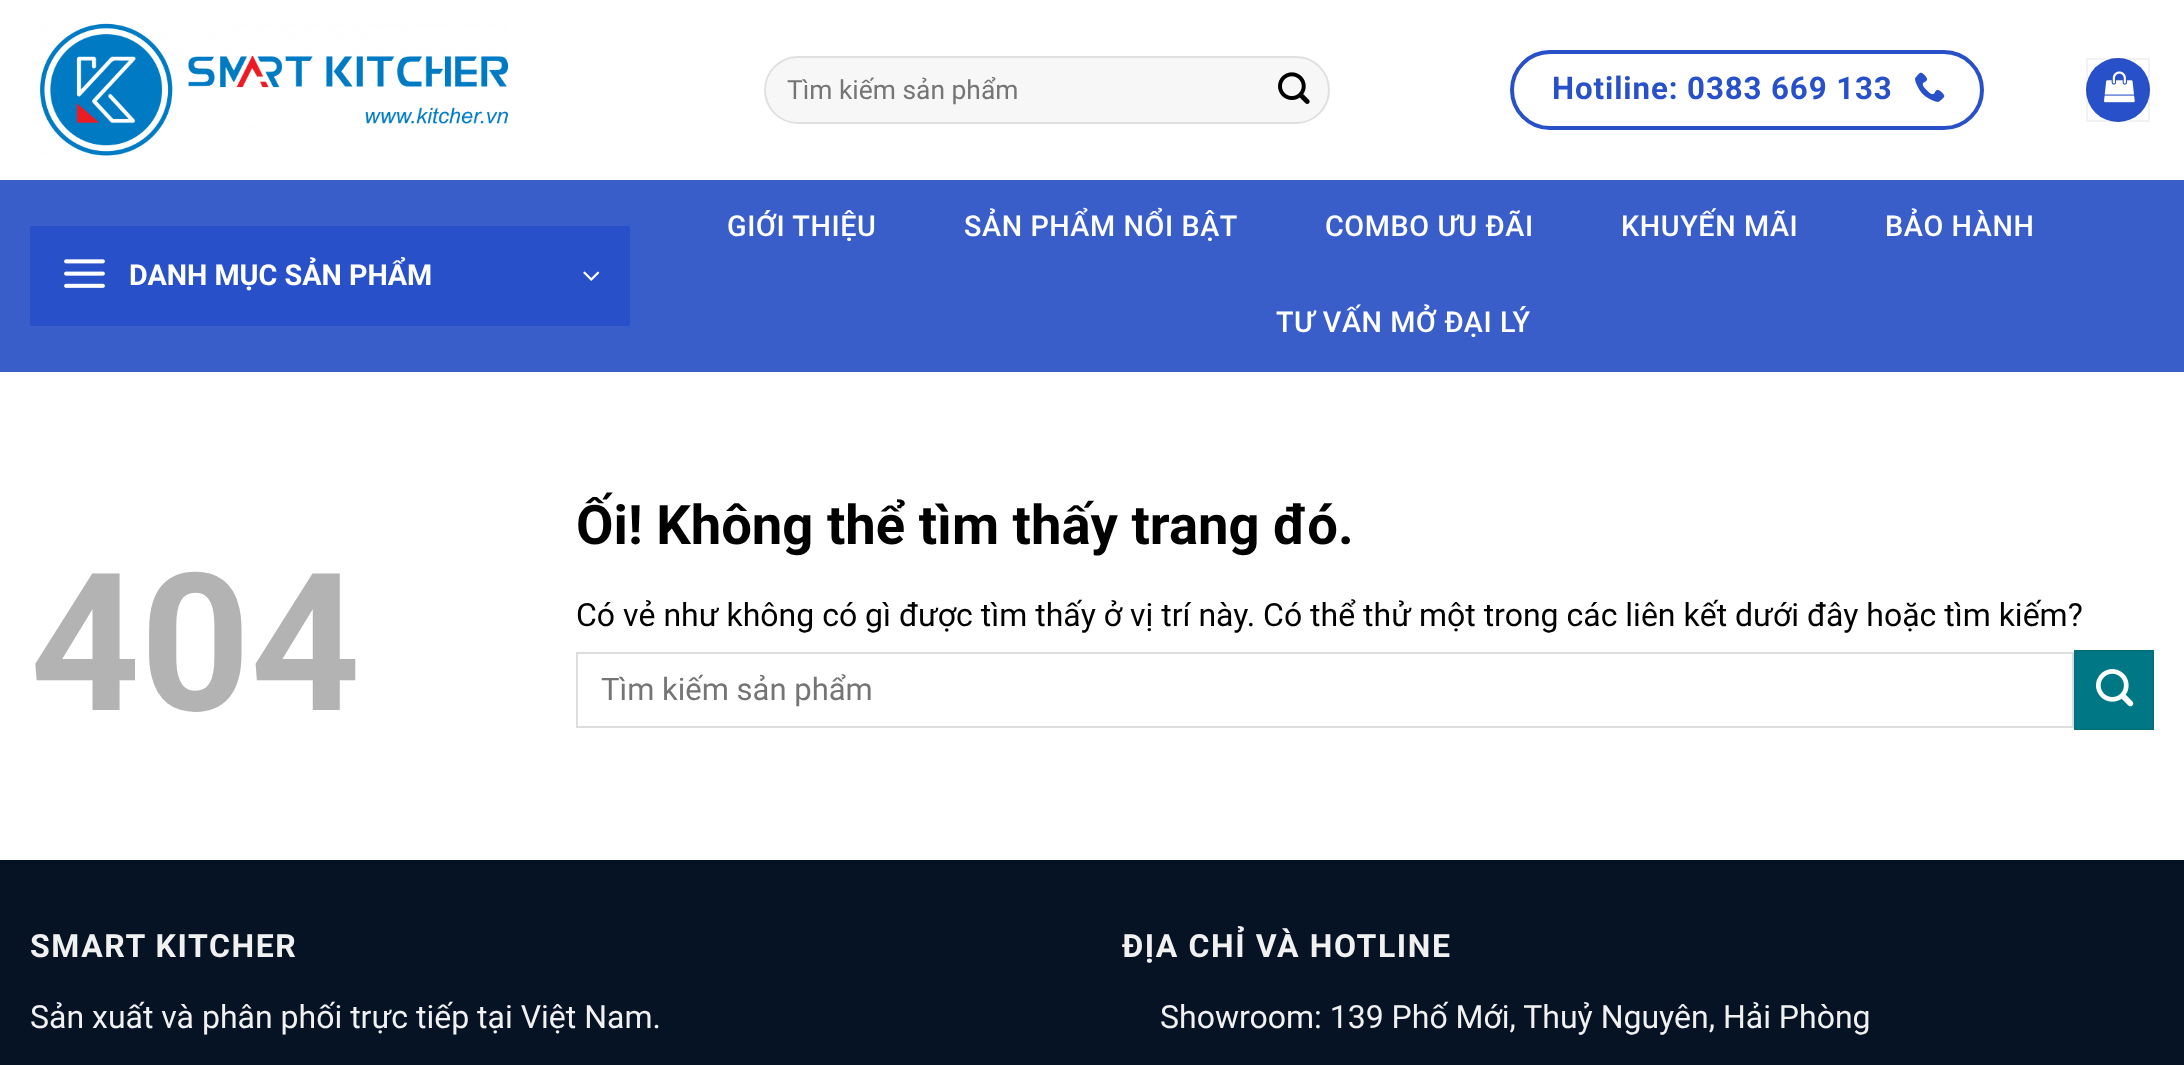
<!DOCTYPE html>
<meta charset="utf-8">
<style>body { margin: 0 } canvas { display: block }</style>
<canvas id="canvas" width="2184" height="1065"></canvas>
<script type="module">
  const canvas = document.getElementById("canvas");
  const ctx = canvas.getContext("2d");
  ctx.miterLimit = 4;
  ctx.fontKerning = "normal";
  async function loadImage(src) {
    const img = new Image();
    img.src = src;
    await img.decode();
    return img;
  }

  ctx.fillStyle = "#ffffff";
  ctx.fillRect(0, 0, 2184, 1065);
  ctx.drawImage(await loadImage("img1.png"), 40, 23, 469, 133);
  ctx.fillStyle = "#f7f7f7";
  ctx.beginPath();
  ctx.roundRect(764, 56, 566, 68, 34);
  ctx.fill();
  ctx.beginPath();
  ctx.roundRect(765, 57, 564, 66, 33);
  ctx.strokeStyle = "rgba(0, 0, 0, 0.09)";
  ctx.lineWidth = 2;
  ctx.stroke();
  ctx.font = "26.4px Roboto";
  ctx.fillStyle = "#757575";
  ctx.fillText("Tìm kiếm sản phẩm", 787, 99);
  ctx.drawImage(await loadImage("img2.png"), 1278, 72, 32, 32);
  ctx.beginPath();
  ctx.roundRect(1512, 52, 470, 76, 38);
  ctx.strokeStyle = "#2850c9";
  ctx.lineWidth = 4;
  ctx.stroke();
  ctx.letterSpacing = "0.9px";
  ctx.font = "bold 31.25px Roboto";
  ctx.fillStyle = "#2850c9";
  ctx.fillText("Hotiline: 0383 669 133", 1552, 99);
  ctx.drawImage(await loadImage("img3.png"), 1915, 72, 30, 30);
  ctx.beginPath();
  ctx.arc(2118, 90, 32, 0, Math.PI * 2);
  ctx.fill();
  ctx.strokeStyle = "rgba(0, 0, 0, 0.05)";
  ctx.lineWidth = 2;
  ctx.strokeRect(2087, 59, 62, 62);
  ctx.drawImage(await loadImage("img4.png"), 2104, 71, 31, 32);
  ctx.fillStyle = "#3a5ec9";
  ctx.fillRect(0, 180, 2184, 192);
  ctx.fillStyle = "#2850c9";
  ctx.fillRect(30, 226, 600, 100);
  ctx.drawImage(await loadImage("img5.png"), 64, 259, 41, 29);
  ctx.letterSpacing = "0px";
  ctx.font = "bold 28.75px Roboto";
  ctx.fillStyle = "#ffffff";
  ctx.fillText("DANH MỤC SẢN PHẨM", 129, 285);
  ctx.drawImage(await loadImage("img6.png"), 583, 271, 17, 10);
  ctx.letterSpacing = "0.6px";
  ctx.font = "500 28.75px Roboto";
  ctx.fillText("GIỚI THIỆU", 727, 236);
  ctx.fillText("SẢN PHẨM NỔI BẬT", 964, 236);
  ctx.fillText("COMBO ƯU ĐÃI", 1325, 236);
  ctx.fillText("KHUYẾN MÃI", 1621, 236);
  ctx.fillText("BẢO HÀNH", 1885, 236);
  ctx.fillText("TƯ VẤN MỞ ĐẠI LÝ", 1276, 332);
  ctx.letterSpacing = "0px";
  ctx.font = "bold 192px Roboto";
  ctx.fillStyle = "#b3b3b3";
  ctx.fillText("404", 30, 710);
  ctx.font = "bold 54.4px Roboto";
  ctx.fillStyle = "#000000";
  ctx.fillText("Ối! Không thể tìm thấy trang đó.", 576, 544);
  ctx.font = "32px Roboto";
  ctx.fillText("Có vẻ như không có gì được tìm thấy ở vị trí này. Có thể thử một trong các liên kết dưới đây hoặc tìm kiếm?", 576, 626);
  ctx.strokeStyle = "#dddddd";
  ctx.strokeRect(577, 653, 1496, 74);
  ctx.font = "31px Roboto";
  ctx.fillStyle = "#757575";
  ctx.fillText("Tìm kiếm sản phẩm", 601, 700);
  ctx.fillStyle = "#007784";
  ctx.beginPath();
  ctx.rect(2075, 651, 78, 78);
  ctx.fill();
  ctx.strokeStyle = "#00717d";
  ctx.stroke();
  ctx.drawImage(await loadImage("img7.png"), 2096, 669, 38, 38);
  ctx.fillStyle = "#051324";
  ctx.fillRect(0, 862, 2184, 203);
  ctx.fillStyle = "#051222";
  ctx.fillRect(0, 860, 2184, 2);
  ctx.letterSpacing = "1.6px";
  ctx.font = "bold 32px Roboto";
  ctx.fillStyle = "#f1f1f1";
  ctx.fillText("SMART KITCHER", 30, 957);
  ctx.letterSpacing = "0px";
  ctx.font = "32px Roboto";
  ctx.fillText("Sản xuất và phân phối trực tiếp tại Việt Nam.", 30, 1028);
  ctx.letterSpacing = "1.6px";
  ctx.font = "bold 32px Roboto";
  ctx.fillText("ĐỊA CHỈ VÀ HOTLINE", 1122, 957);
  ctx.letterSpacing = "0px";
  ctx.font = "32px Roboto";
  ctx.fillText("Showroom: 139 Phố Mới, Thuỷ Nguyên, Hải Phòng", 1160, 1028);
</script>
